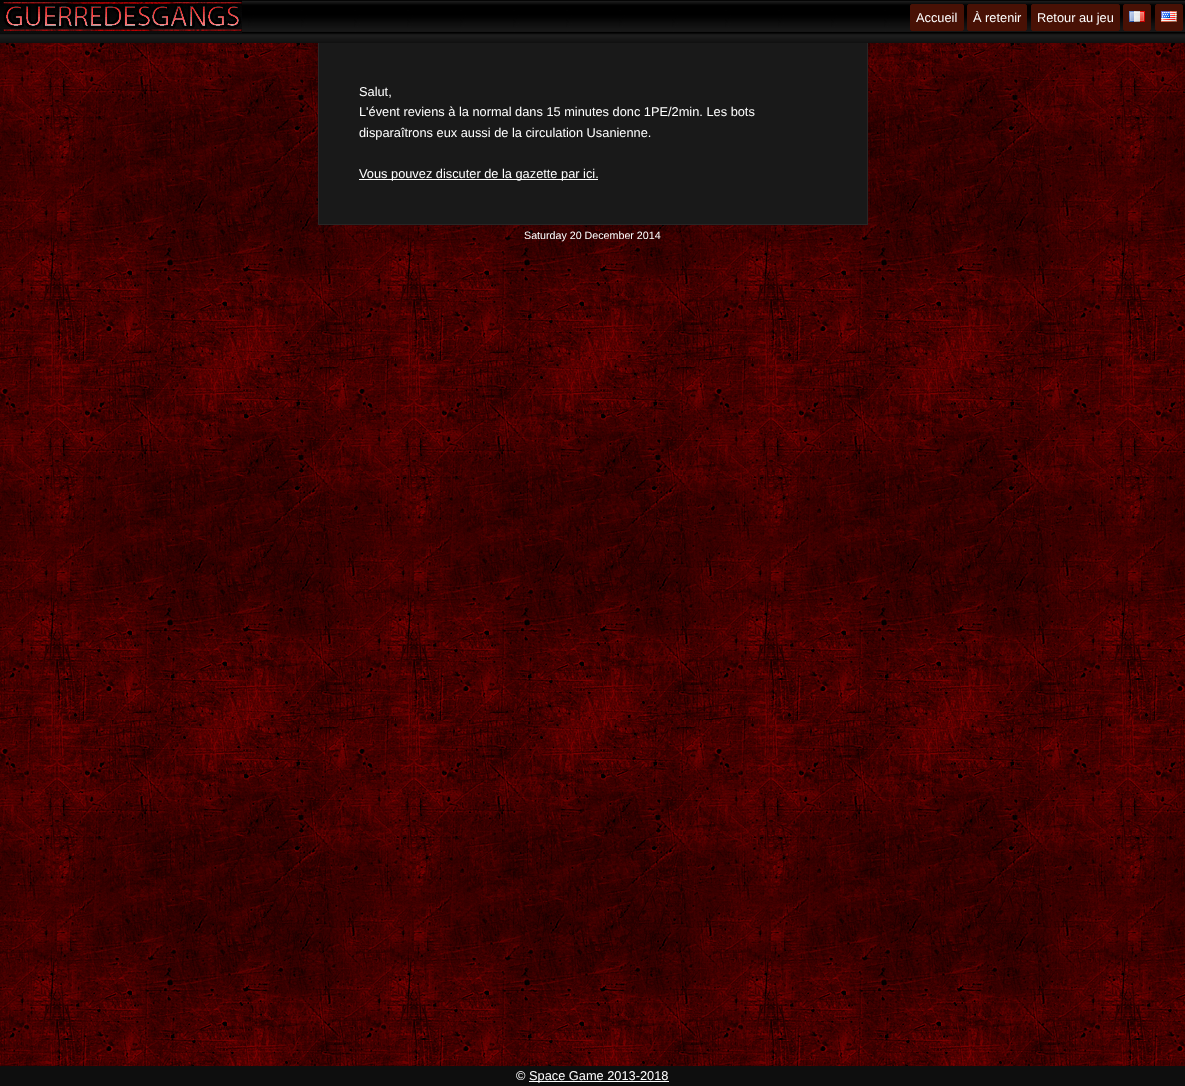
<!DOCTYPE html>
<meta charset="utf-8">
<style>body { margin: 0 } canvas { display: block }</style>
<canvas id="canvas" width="1185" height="1086"></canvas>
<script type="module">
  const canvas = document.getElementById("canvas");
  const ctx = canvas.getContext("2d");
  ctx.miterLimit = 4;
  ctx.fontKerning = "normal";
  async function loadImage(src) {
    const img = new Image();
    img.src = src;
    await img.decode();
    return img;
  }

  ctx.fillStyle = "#ffffff";
  ctx.fillRect(0, 0, 1185, 1086);
  ctx.drawImage(await loadImage("img1.png"), 0, 43, 1185, 1023);
  ctx.fillStyle = "#191919";
  ctx.fillRect(319, 43, 548, 181);
  ctx.strokeStyle = "#292525";
  ctx.strokeRect(318.5, 41.5, 549, 183);
  ctx.drawImage(await loadImage("img2.png"), 0, 0, 1185, 43);
  ctx.drawImage(await loadImage("img3.png"), 0, 0, 242, 33);
  ctx.fillStyle = "#481105";
  ctx.beginPath();
  ctx.roundRect(967.5, 4.5, 59, 26, 1.5);
  ctx.fill();
  ctx.strokeStyle = "#481105";
  ctx.stroke();
  ctx.font = "12.8px Liberation Sans";
  ctx.fillStyle = "#ffffff";
  ctx.fillText("À retenir", 973, 22);
  ctx.fillStyle = "#481105";
  ctx.beginPath();
  ctx.roundRect(1123.5, 4.5, 27, 26, 1.5);
  ctx.fill();
  ctx.stroke();
  ctx.beginPath();
  ctx.roundRect(1155.5, 4.5, 27, 26, 1.5);
  ctx.fill();
  ctx.stroke();
  ctx.beginPath();
  ctx.roundRect(910.5, 4.5, 53, 26, 1.5);
  ctx.fill();
  ctx.stroke();
  ctx.fillStyle = "#ffffff";
  ctx.fillText("Accueil", 916, 22);
  ctx.fillStyle = "#481105";
  ctx.beginPath();
  ctx.roundRect(1031.5, 4.5, 88, 26, 1.5);
  ctx.fill();
  ctx.stroke();
  ctx.fillStyle = "#ffffff";
  ctx.fillText("Retour au jeu", 1037, 22);
  ctx.drawImage(await loadImage("img4.png"), 1129, 11, 16, 11);
  ctx.drawImage(await loadImage("img5.png"), 1161, 11, 16, 11);
  ctx.fillText("Salut,", 359, 96);
  ctx.fillText("L'évent reviens à la normal dans 15 minutes donc 1PE/2min. Les bots", 359, 116);
  ctx.fillText("disparaîtrons eux aussi de la circulation Usanienne.", 359, 137);
  ctx.fillRect(359, 179, 239, 1);
  ctx.fillText("Vous pouvez discuter de la gazette par ici.", 359, 178);
  ctx.font = "10.7px Liberation Sans";
  ctx.fillText("Saturday 20 December 2014", 524, 239);
  ctx.fillStyle = "#0e0e0e";
  ctx.fillRect(0, 1066, 1185, 20);
  ctx.font = "12.8px Liberation Sans";
  ctx.fillStyle = "#ffffff";
  ctx.fillText("©", 516, 1080);
  ctx.fillRect(529, 1081, 140, 1);
  ctx.fillText("Space Game 2013-2018", 529, 1080);
</script>
